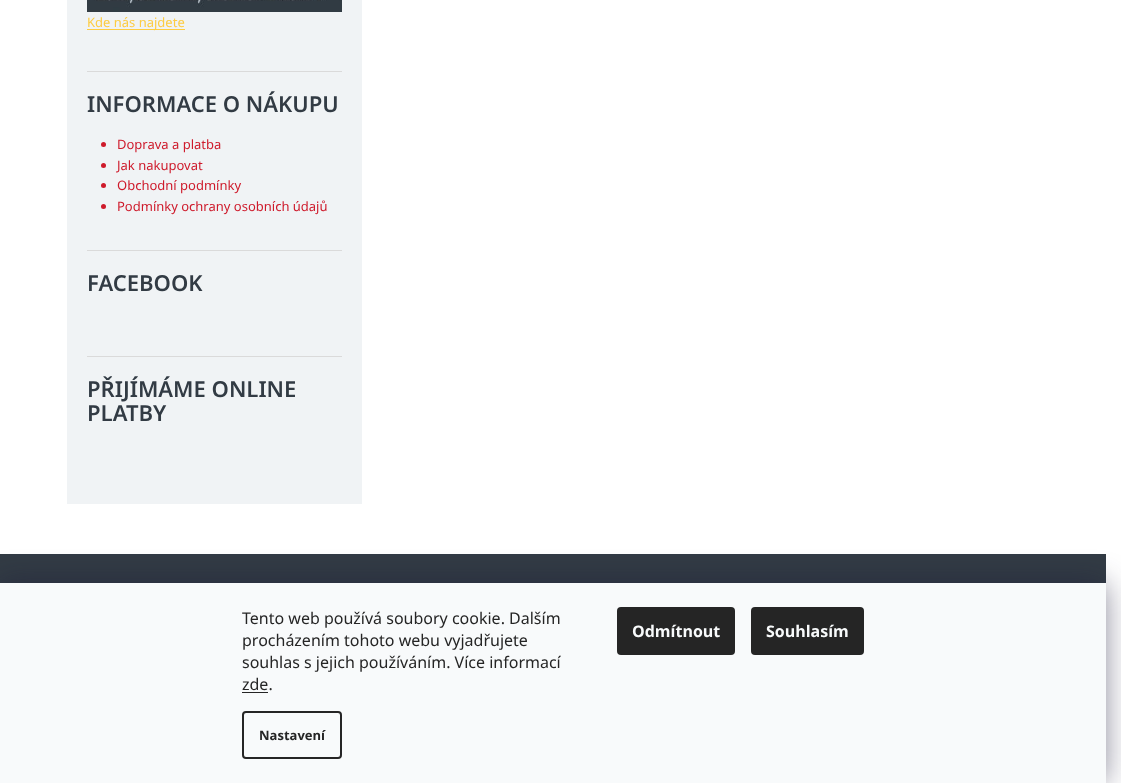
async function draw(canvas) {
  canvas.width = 1121
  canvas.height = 783
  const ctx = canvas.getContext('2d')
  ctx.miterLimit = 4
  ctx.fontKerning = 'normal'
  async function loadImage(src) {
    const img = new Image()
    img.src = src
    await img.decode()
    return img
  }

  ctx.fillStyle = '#fff'
  ctx.fillRect(0, 0, 1121, 783)
  ctx.fillStyle = '#f0f3f5'
  ctx.fillRect(67, 0, 295, 504)
  ctx.fillStyle = '#dadada'
  ctx.fillRect(87, 71, 255, 1)
  ctx.drawImage(await loadImage('image0.png'), 87, 0, 255, 12)
  ctx.fillStyle = '#fdcc42'
  ctx.fillRect(87, 29, 98, 1)
  ctx.font = '13px Noto Sans'
  ctx.fillText('Kde nás najdete', 87, 27)
  ctx.fillStyle = '#dadada'
  ctx.fillRect(87, 250, 255, 1)
  ctx.font = '600 22px Noto Sans'
  ctx.fillStyle = '#323b44'
  ctx.fillText('INFORMACE O NÁKUPU', 87, 112)
  ctx.fillStyle = '#ce1a2b'
  ctx.beginPath()
  ctx.arc(103.5, 144.5, 2.5, 0, 2 * Math.PI)
  ctx.fill()
  ctx.font = '13px Noto Sans'
  ctx.fillText('Doprava a platba', 117, 149)
  ctx.beginPath()
  ctx.arc(103.5, 165.5, 2.5, 0, 2 * Math.PI)
  ctx.fill()
  ctx.fillText('Jak nakupovat', 117, 170)
  ctx.beginPath()
  ctx.arc(103.5, 185.5, 2.5, 0, 2 * Math.PI)
  ctx.fill()
  ctx.fillText('Obchodní podmínky', 117, 190)
  ctx.beginPath()
  ctx.arc(103.5, 206.5, 2.5, 0, 2 * Math.PI)
  ctx.fill()
  ctx.fillText('Podmínky ochrany osobních údajů', 117, 211)
  ctx.fillStyle = '#dadada'
  ctx.fillRect(87, 356, 255, 1)
  ctx.font = '600 22px Noto Sans'
  ctx.fillStyle = '#323b44'
  ctx.fillText('FACEBOOK', 87, 291)
  ctx.fillText('PŘIJÍMÁME ONLINE', 87, 397)
  ctx.fillText('PLATBY', 87, 421)
  ctx.fillRect(0, 554, 1106, 29)
  ctx.fillStyle = '#1b193980'
  ctx.filter = 'blur(15px)'
  ctx.beginPath()
  ctx.rect(0, 583, 1106, 200)
  ctx.fill()
  ctx.filter = 'none'
  ctx.fillStyle = '#f8fafb'
  ctx.fillRect(0, 583, 1106, 200)
  ctx.font = '16px Noto Sans'
  ctx.fillStyle = '#252525'
  ctx.fillText('Tento web používá soubory cookie. Dalším', 242, 624)
  ctx.fillText('procházením tohoto webu vyjadřujete', 242, 646)
  ctx.fillText('souhlas s jejich používáním. Více informací', 242, 668)
  ctx.fillText('zde.', 242, 690)
  ctx.fillRect(242, 692, 26, 1)
  ctx.beginPath()
  ctx.roundRect(243, 712, 98, 46, 3)
  ctx.strokeStyle = '#252525'
  ctx.lineWidth = 2
  ctx.stroke()
  ctx.font = 'bold 13px Noto Sans'
  ctx.fillText('Nastavení', 259, 740)
  ctx.beginPath()
  ctx.roundRect(617, 607, 118, 48, 4)
  ctx.fill()
  ctx.font = 'bold 16px Noto Sans'
  ctx.fillStyle = '#f8fafb'
  ctx.fillText('Odmítnout', 632, 637)
  ctx.fillStyle = '#252525'
  ctx.beginPath()
  ctx.roundRect(751, 607, 113, 48, 4)
  ctx.fill()
  ctx.fillStyle = '#f8fafb'
  ctx.fillText('Souhlasím', 766, 637)
}

draw(document.querySelector('canvas'))
